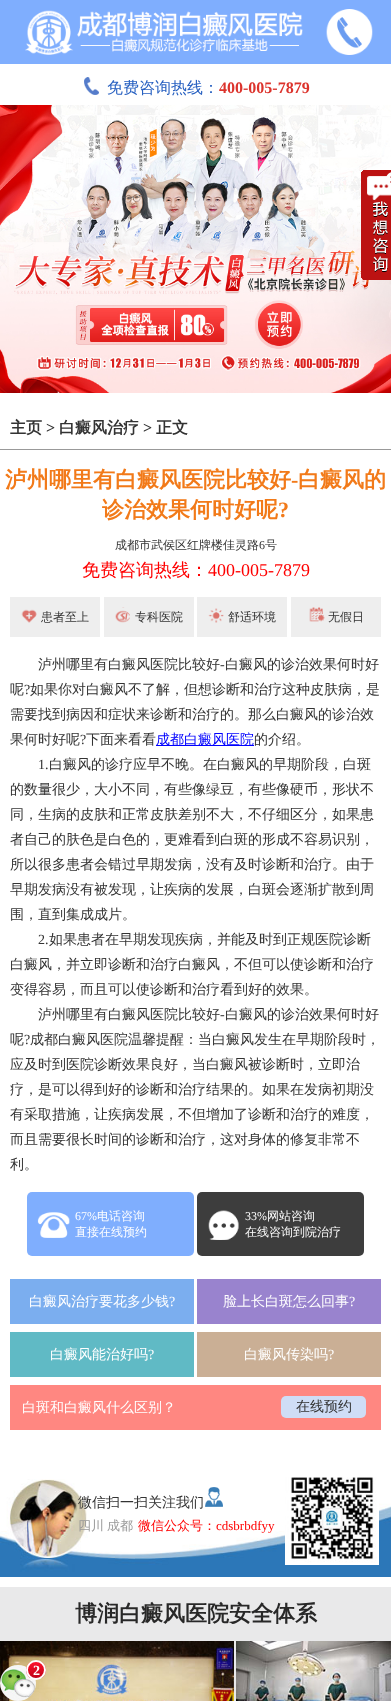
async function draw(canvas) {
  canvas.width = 391
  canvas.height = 1701
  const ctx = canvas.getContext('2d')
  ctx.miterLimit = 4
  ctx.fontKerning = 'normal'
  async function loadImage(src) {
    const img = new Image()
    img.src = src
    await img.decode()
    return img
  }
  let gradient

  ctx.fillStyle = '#fff'
  ctx.fillRect(0, 0, 391, 1701)
  ctx.drawImage(await loadImage('image0.png'), 0, 0, 391, 64)
  ctx.drawImage(await loadImage('image1.png'), 84, 77, 15, 18)
  ctx.font = '500 16px WenQuanYi Zen Hei'
  ctx.fillStyle = '#2760c1'
  ctx.fillText('免费咨询热线：', 107, 93)
  ctx.font = 'bold 16px Liberation Serif'
  ctx.fillStyle = '#dc332c'
  ctx.fillText('400-005-7879', 219, 93)
  ctx.drawImage(await loadImage('image2.png'), 0, 105, 391, 288)
  ctx.drawImage(await loadImage('image3.png'), 361, 170, 30, 110)
  ctx.fillStyle = '#999'
  ctx.fillRect(0, 449, 391, 1)
  ctx.font = 'bold 16px WenQuanYi Zen Hei'
  ctx.fillStyle = '#333'
  ctx.fillText('主页', 10, 433)
  ctx.font = 'bold 16px Liberation Serif'
  ctx.fillText('>', 46, 433)
  ctx.font = 'bold 16px WenQuanYi Zen Hei'
  ctx.fillText('白癜风治疗', 59, 433)
  ctx.font = 'bold 16px Liberation Serif'
  ctx.fillText('>', 143, 433)
  ctx.font = 'bold 16px WenQuanYi Zen Hei'
  ctx.fillText('正文', 156, 433)
  ctx.font = 'bold 22px WenQuanYi Zen Hei'
  ctx.fillStyle = '#f27a19'
  ctx.fillText('泸州哪里有白癜风医院比较好', 5, 487)
  ctx.font = 'bold 22px Liberation Serif'
  ctx.fillText('-', 291, 487)
  ctx.font = 'bold 22px WenQuanYi Zen Hei'
  ctx.fillText('白癜风的', 298, 487)
  ctx.fillText('诊治效果何时好呢', 102, 517)
  ctx.font = 'bold 22px Liberation Serif'
  ctx.fillText('?', 278, 517)
  ctx.font = '500 12px WenQuanYi Zen Hei'
  ctx.fillStyle = '#333'
  ctx.fillText('成都市武侯区红牌楼佳灵路', 115, 549)
  ctx.font = '12px Liberation Serif'
  ctx.fillText('6', 259, 549)
  ctx.font = '500 12px WenQuanYi Zen Hei'
  ctx.fillText('号', 265, 549)
  ctx.font = '500 18px WenQuanYi Zen Hei'
  ctx.fillStyle = '#f00'
  ctx.fillText('免费咨询热线：', 82, 576)
  ctx.font = '18px Liberation Serif'
  ctx.fillText('400-005-7879', 208, 576)
  ctx.fillStyle = '#eee'
  ctx.fillRect(10, 597, 90, 40)
  ctx.drawImage(await loadImage('image4.png'), 21, 609, 16, 14)
  ctx.font = '500 12px WenQuanYi Zen Hei'
  ctx.fillStyle = '#333'
  ctx.fillText('患者至上', 41, 621)
  ctx.fillStyle = '#eee'
  ctx.fillRect(104, 597, 90, 40)
  ctx.drawImage(await loadImage('image5.png'), 115, 607, 15, 16)
  ctx.fillStyle = '#333'
  ctx.fillText('专科医院', 135, 621)
  ctx.fillStyle = '#eee'
  ctx.fillRect(197, 597, 90, 40)
  ctx.drawImage(await loadImage('image6.png'), 208, 608, 16, 15)
  ctx.fillStyle = '#333'
  ctx.fillText('舒适环境', 228, 621)
  ctx.fillStyle = '#eee'
  ctx.fillRect(291, 597, 90, 40)
  ctx.drawImage(await loadImage('image7.png'), 309, 607, 16, 15)
  ctx.fillStyle = '#333'
  ctx.fillText('无假日', 328, 621)
  ctx.font = '500 14px WenQuanYi Zen Hei'
  ctx.fillText('泸州哪里有白癜风医院比较好', 38, 669)
  ctx.font = '14px Liberation Serif'
  ctx.fillText('-', 220, 669)
  ctx.font = '500 14px WenQuanYi Zen Hei'
  ctx.fillText('白癜风的诊治效果何时好', 225, 669)
  ctx.fillText('呢', 10, 694)
  ctx.font = '14px Liberation Serif'
  ctx.fillText('?', 24, 694)
  ctx.font = '500 14px WenQuanYi Zen Hei'
  ctx.fillText('如果你对白癜风不了解，但想诊断和治疗这种皮肤病，是', 30, 694)
  ctx.fillText('需要找到病因和症状来诊断和治疗的。那么白癜风的诊治效', 10, 719)
  ctx.fillText('果何时好呢', 10, 744)
  ctx.font = '14px Liberation Serif'
  ctx.fillText('?', 80, 744)
  ctx.font = '500 14px WenQuanYi Zen Hei'
  ctx.fillText('下面来看看', 86, 744)
  ctx.fillStyle = '#00f'
  ctx.fillRect(156, 745, 98, 1)
  ctx.fillText('成都白癜风医院', 156, 744)
  ctx.fillStyle = '#333'
  ctx.fillText('的介绍。', 254, 744)
  ctx.font = '14px Liberation Serif'
  ctx.fillText('1.', 38, 769)
  ctx.font = '500 14px WenQuanYi Zen Hei'
  ctx.fillText('白癜风的诊疗应早不晚。在白癜风的早期阶段，白斑', 49, 769)
  ctx.fillText('的数量很少，大小不同，有些像绿豆，有些像硬币，形状不', 10, 794)
  ctx.fillText('同，生病的皮肤和正常皮肤差别不大，不仔细区分，如果患', 10, 819)
  ctx.fillText('者自己的肤色是白色的，更难看到白斑的形成不容易识别，', 10, 844)
  ctx.fillText('所以很多患者会错过早期发病，没有及时诊断和治疗。由于', 10, 869)
  ctx.fillText('早期发病没有被发现，让疾病的发展，白斑会逐渐扩散到周', 10, 894)
  ctx.fillText('围，直到集成成片。', 10, 919)
  ctx.font = '14px Liberation Serif'
  ctx.fillText('2.', 38, 944)
  ctx.font = '500 14px WenQuanYi Zen Hei'
  ctx.fillText('如果患者在早期发现疾病，并能及时到正规医院诊断', 49, 944)
  ctx.fillText('白癜风，并立即诊断和治疗白癜风，不但可以使诊断和治疗', 10, 969)
  ctx.fillText('变得容易，而且可以使诊断和治疗看到好的效果。', 10, 994)
  ctx.fillText('泸州哪里有白癜风医院比较好', 38, 1019)
  ctx.font = '14px Liberation Serif'
  ctx.fillText('-', 220, 1019)
  ctx.font = '500 14px WenQuanYi Zen Hei'
  ctx.fillText('白癜风的诊治效果何时好', 225, 1019)
  ctx.fillText('呢', 10, 1044)
  ctx.font = '14px Liberation Serif'
  ctx.fillText('?', 24, 1044)
  ctx.font = '500 14px WenQuanYi Zen Hei'
  ctx.fillText('成都白癜风医院温馨提醒：当白癜风发生在早期阶段时，', 30, 1044)
  ctx.fillText('应及时到医院诊断效果良好，当白癜风被诊断时，立即治', 10, 1069)
  ctx.fillText('疗，是可以得到好的诊断和治疗结果的。如果在发病初期没', 10, 1094)
  ctx.fillText('有采取措施，让疾病发展，不但增加了诊断和治疗的难度，', 10, 1119)
  ctx.fillText('而且需要很长时间的诊断和治疗，这对身体的修复非常不', 10, 1144)
  ctx.fillText('利。', 10, 1169)
  ctx.fillStyle = '#7faefe'
  ctx.beginPath()
  ctx.roundRect(27, 1192, 167, 64, 5)
  ctx.fill()
  ctx.drawImage(await loadImage('image8.png'), 37, 1212, 33, 26)
  ctx.font = '12px Liberation Serif'
  ctx.fillStyle = '#fff'
  ctx.fillText('67%', 75, 1220)
  ctx.font = '500 12px WenQuanYi Zen Hei'
  ctx.fillText('电话咨询', 97, 1220)
  ctx.fillText('直接在线预约', 75, 1236)
  ctx.fillStyle = '#3d3d3d'
  ctx.beginPath()
  ctx.roundRect(197, 1192, 167, 64, 5)
  ctx.fill()
  ctx.drawImage(await loadImage('image9.png'), 208, 1210, 31, 30)
  ctx.font = '12px Liberation Serif'
  ctx.fillStyle = '#fff'
  ctx.fillText('33%', 245, 1220)
  ctx.font = '500 12px WenQuanYi Zen Hei'
  ctx.fillText('网站咨询', 267, 1220)
  ctx.fillText('在线咨询到院治疗', 245, 1236)
  ctx.fillStyle = '#7baeef'
  ctx.fillRect(10, 1279, 184, 45)
  ctx.font = '500 14px WenQuanYi Zen Hei'
  ctx.fillStyle = '#fff'
  ctx.fillText('白癜风治疗要花多少钱', 29, 1306)
  ctx.font = '14px Liberation Serif'
  ctx.fillText('?', 169, 1306)
  ctx.fillStyle = '#9983ce'
  ctx.fillRect(197, 1279, 184, 45)
  ctx.font = '500 14px WenQuanYi Zen Hei'
  ctx.fillStyle = '#fff'
  ctx.fillText('脸上长白斑怎么回事', 223, 1306)
  ctx.font = '14px Liberation Serif'
  ctx.fillText('?', 349, 1306)
  ctx.fillStyle = '#60bac5'
  ctx.fillRect(10, 1332, 184, 45)
  ctx.font = '500 14px WenQuanYi Zen Hei'
  ctx.fillStyle = '#fff'
  ctx.fillText('白癜风能治好吗', 50, 1359)
  ctx.font = '14px Liberation Serif'
  ctx.fillText('?', 148, 1359)
  ctx.fillStyle = '#caaf95'
  ctx.fillRect(197, 1332, 184, 45)
  ctx.font = '500 14px WenQuanYi Zen Hei'
  ctx.fillStyle = '#fff'
  ctx.fillText('白癜风传染吗', 244, 1359)
  ctx.font = '14px Liberation Serif'
  ctx.fillText('?', 328, 1359)
  ctx.fillStyle = '#ff8781'
  ctx.fillRect(10, 1385, 371, 45)
  ctx.font = '500 14px WenQuanYi Zen Hei'
  ctx.fillStyle = '#fff'
  ctx.fillText('白斑和白癜风什么区别？', 22, 1412)
  ctx.fillStyle = '#cfddf6'
  ctx.beginPath()
  ctx.roundRect(281, 1396, 85, 22, 5)
  ctx.fill()
  ctx.fillStyle = '#333'
  ctx.fillText('在线预约', 296, 1411)
  ctx.drawImage(await loadImage('image10.png'), 0, 1479, 391, 98)
  ctx.fillText('微信扫一扫关注我们', 78, 1507)
  ctx.drawImage(await loadImage('image11.png'), 205, 1487, 18, 20)
  ctx.wordSpacing = '-1px'
  ctx.font = '500 13px WenQuanYi Zen Hei'
  ctx.fillStyle = '#999'
  ctx.fillText('四川 成都', 78, 1530)
  ctx.wordSpacing = '0px'
  ctx.fillStyle = '#f00'
  ctx.fillText('微信公众号：', 138, 1530)
  ctx.font = '13px Liberation Serif'
  ctx.fillText('cdsbrbdfyy', 216, 1530)
  ctx.drawImage(await loadImage('image12.png'), 285, 1477, 94, 88)
  ctx.fillStyle = '#e9e9ea'
  ctx.fillRect(0, 1587, 391, 114)
  ctx.font = 'bold 22px WenQuanYi Zen Hei'
  ctx.fillStyle = '#282828'
  ctx.fillText('博润白癜风医院安全体系', 75, 1621)
  ctx.drawImage(await loadImage('image13.png'), 0, 1641, 234, 60)
  ctx.drawImage(await loadImage('image14.png'), 236, 1641, 155, 60)
  ctx.drawImage(await loadImage('image15.png'), 0, 1665, 36, 36)
  ctx.save()
  ctx.beginPath()
  ctx.roundRect(26, 1660, 20, 20, 10)
  ctx.clip()
  gradient = ctx.createLinearGradient(36, 1662, 36, 1678)
  gradient.addColorStop(0, '#fd142e')
  gradient.addColorStop(1, '#bf0116')
  ctx.fillStyle = gradient
  ctx.fillRect(26, 1662, 20, 16)
  ctx.restore()
  ctx.beginPath()
  ctx.arc(36, 1670, 9, 0, 2 * Math.PI)
  ctx.strokeStyle = '#fff'
  ctx.lineWidth = 2
  ctx.stroke()
  ctx.font = 'bold 14px Liberation Serif'
  ctx.fillStyle = '#fff'
  ctx.fillText('2', 33, 1675)
}

draw(document.querySelector('canvas'))
